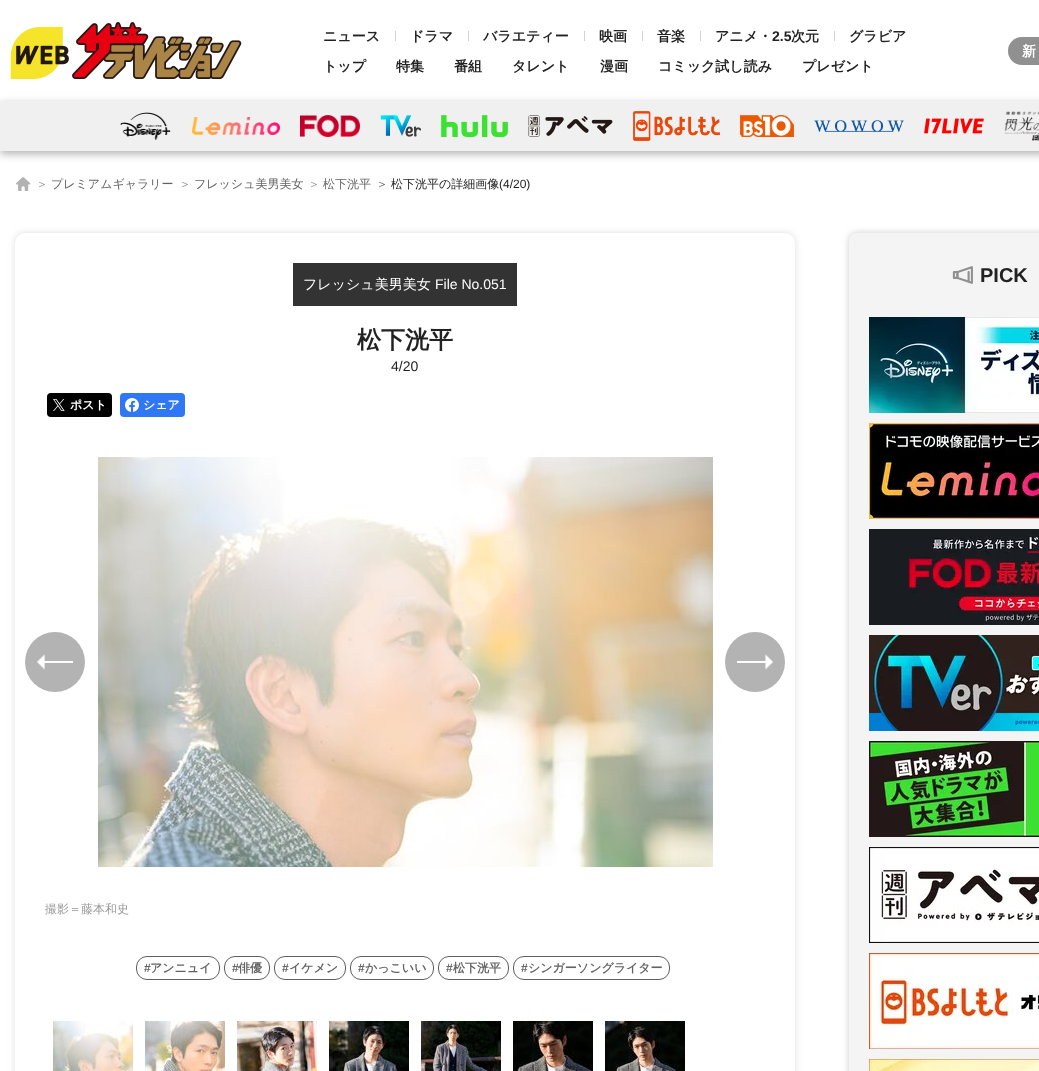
async function draw(canvas) {
  canvas.width = 1039
  canvas.height = 1071
  const ctx = canvas.getContext('2d')
  ctx.miterLimit = 4
  ctx.fontKerning = 'normal'
  async function loadImage(src) {
    const img = new Image()
    img.src = src
    await img.decode()
    return img
  }

  ctx.fillStyle = '#fff'
  ctx.fillRect(0, 0, 1039, 1071)
  ctx.drawImage(await loadImage('image0.png'), 10, 22, 232, 57)
  ctx.font = 'bold 14px WenQuanYi Zen Hei'
  ctx.fillStyle = '#222'
  ctx.fillText('ニュース', 323, 41)
  ctx.fillStyle = '#d3d3d3'
  ctx.fillRect(395, 31, 1, 10)
  ctx.fillStyle = '#222'
  ctx.fillText('ドラマ', 410, 41)
  ctx.fillStyle = '#d3d3d3'
  ctx.fillRect(468, 31, 1, 10)
  ctx.fillStyle = '#222'
  ctx.fillText('バラエティー', 483, 41)
  ctx.fillStyle = '#d3d3d3'
  ctx.fillRect(584, 31, 1, 10)
  ctx.fillStyle = '#222'
  ctx.fillText('映画', 599, 41)
  ctx.fillStyle = '#d3d3d3'
  ctx.fillRect(642, 31, 1, 10)
  ctx.fillStyle = '#222'
  ctx.fillText('音楽', 657, 41)
  ctx.fillStyle = '#d3d3d3'
  ctx.fillRect(700, 31, 1, 10)
  ctx.fillStyle = '#222'
  ctx.fillText('アニメ・', 715, 41)
  ctx.font = 'bold 14px Liberation Sans'
  ctx.fillText('2.5', 772, 41)
  ctx.font = 'bold 14px WenQuanYi Zen Hei'
  ctx.fillText('次元', 791, 41)
  ctx.fillStyle = '#d3d3d3'
  ctx.fillRect(834, 31, 1, 10)
  ctx.fillStyle = '#222'
  ctx.fillText('グラビア', 849, 41)
  ctx.fillText('トップ', 323, 71)
  ctx.fillText('特集', 396, 71)
  ctx.fillText('番組', 454, 71)
  ctx.fillText('タレント', 512, 71)
  ctx.fillText('漫画', 600, 71)
  ctx.fillText('コミック試し読み', 658, 71)
  ctx.fillText('プレゼント', 802, 71)
  ctx.fillStyle = '#909090'
  ctx.beginPath()
  ctx.roundRect(1008, 37, 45, 28, 14)
  ctx.fill()
  ctx.fillStyle = '#fff'
  ctx.fillText('新', 1022, 56)
  ctx.fillStyle = '#0000004d'
  ctx.filter = 'blur(4px)'
  ctx.beginPath()
  ctx.rect(0, 104, 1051, 50)
  ctx.fill()
  ctx.filter = 'none'
  ctx.fillStyle = '#f0f0f0'
  ctx.fillRect(0, 101, 1039, 50)
  ctx.drawImage(await loadImage('image1.png'), 120, 112, 51, 28)
  ctx.drawImage(await loadImage('image2.png'), 192, 117, 88, 18)
  ctx.drawImage(await loadImage('image3.png'), 300, 115, 60, 22)
  ctx.drawImage(await loadImage('image4.png'), 380, 115, 41, 22)
  ctx.drawImage(await loadImage('image5.png'), 441, 115, 67, 22)
  ctx.drawImage(await loadImage('image6.png'), 528, 115, 85, 22)
  ctx.drawImage(await loadImage('image7.png'), 633, 111, 87, 30)
  ctx.drawImage(await loadImage('image8.png'), 740, 115, 54, 22)
  ctx.drawImage(await loadImage('image9.png'), 814, 120, 90, 12)
  ctx.drawImage(await loadImage('image10.png'), 924, 118, 60, 16)
  ctx.drawImage(await loadImage('image11.png'), 1004, 111, 35, 30)
  ctx.drawImage(await loadImage('image12.png'), 16, 177, 15, 14)
  ctx.font = '500 12px WenQuanYi Zen Hei'
  ctx.fillStyle = '#909090'
  ctx.fillText('＞', 36, 188)
  ctx.fillStyle = '#646464'
  ctx.fillText('プレミアムギャラリー', 51, 188)
  ctx.fillStyle = '#909090'
  ctx.fillText('＞', 179, 188)
  ctx.fillStyle = '#646464'
  ctx.fillText('フレッシュ美男美女', 194, 188)
  ctx.fillStyle = '#909090'
  ctx.fillText('＞', 308, 188)
  ctx.fillStyle = '#646464'
  ctx.fillText('松下洸平', 323, 188)
  ctx.fillText('＞', 376, 188)
  ctx.fillStyle = '#222'
  ctx.fillText('松下洸平の詳細画像', 391, 188)
  ctx.font = '12px Liberation Sans'
  ctx.fillText('(4/20)', 499, 188)
  ctx.fillStyle = '#5555554d'
  ctx.filter = 'blur(3.5px)'
  ctx.beginPath()
  ctx.roundRect(849, 233, 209, 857, 8)
  ctx.fill()
  ctx.filter = 'none'
  ctx.fillStyle = '#f4f4f4'
  ctx.beginPath()
  ctx.roundRect(849, 233, 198, 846, 8)
  ctx.fill()
  ctx.drawImage(await loadImage('image13.png'), 952, 266, 21, 18)
  ctx.font = 'bold 20px Liberation Sans'
  ctx.fillStyle = '#222'
  ctx.fillText('PICK', 980, 282)
  ctx.drawImage(await loadImage('image14.png'), 869, 317, 170, 96)
  ctx.drawImage(await loadImage('image15.png'), 869, 423, 170, 96)
  ctx.drawImage(await loadImage('image16.png'), 869, 529, 170, 96)
  ctx.drawImage(await loadImage('image17.png'), 869, 635, 170, 96)
  ctx.drawImage(await loadImage('image18.png'), 869, 741, 170, 96)
  ctx.drawImage(await loadImage('image19.png'), 869, 847, 170, 96)
  ctx.drawImage(await loadImage('image20.png'), 869, 953, 170, 96)
  ctx.drawImage(await loadImage('image21.png'), 869, 1059, 170, 12)
  ctx.fillStyle = '#55555533'
  ctx.filter = 'blur(3.5px)'
  ctx.beginPath()
  ctx.roundRect(15, 233, 780, 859, 10)
  ctx.fill()
  ctx.filter = 'none'
  ctx.fillStyle = '#fff'
  ctx.beginPath()
  ctx.roundRect(15, 233, 780, 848, 10)
  ctx.fill()
  ctx.fillStyle = '#333'
  ctx.fillRect(293, 263, 224, 43)
  ctx.font = '500 14px WenQuanYi Zen Hei'
  ctx.fillStyle = '#fff'
  ctx.fillText('フレッシュ美男美女', 303, 289)
  ctx.font = '14px Liberation Sans'
  ctx.fillText('File No.051', 435, 289)
  ctx.font = 'bold 24px WenQuanYi Zen Hei'
  ctx.fillStyle = '#222'
  ctx.fillText('松下洸平', 357, 348)
  ctx.font = '14px Liberation Sans'
  ctx.fillText('4/20', 391, 371)
  ctx.fillStyle = '#000'
  ctx.beginPath()
  ctx.roundRect(47, 393, 65, 24, 4)
  ctx.fill()
  ctx.drawImage(await loadImage('image22.png'), 53, 399, 12, 12)
  ctx.font = 'bold 12px WenQuanYi Zen Hei'
  ctx.fillStyle = '#fff'
  ctx.fillText('ポスト', 70, 409)
  ctx.fillStyle = '#3077f3'
  ctx.beginPath()
  ctx.roundRect(120, 393, 65, 24, 4)
  ctx.fill()
  ctx.drawImage(await loadImage('image23.png'), 125, 398, 14, 14)
  ctx.fillStyle = '#fff'
  ctx.fillText('シェア', 143, 409)
  ctx.drawImage(await loadImage('image24.png'), 98, 457, 615, 410)
  ctx.fillStyle = '#b3b3b3'
  ctx.beginPath()
  ctx.arc(55, 662, 30, 0, 2 * Math.PI)
  ctx.fill()
  ctx.drawImage(await loadImage('image25.png'), 37, 654, 36, 16)
  ctx.beginPath()
  ctx.arc(755, 662, 30, 0, 2 * Math.PI)
  ctx.fill()
  ctx.drawImage(await loadImage('image26.png'), 737, 654, 36, 16)
  ctx.font = '500 12px WenQuanYi Zen Hei'
  ctx.fillStyle = '#999'
  ctx.fillText('撮影＝藤本和史', 45, 913)
  ctx.beginPath()
  ctx.roundRect(136.5, 956.5, 83, 23, 10.5)
  ctx.strokeStyle = '#606060'
  ctx.stroke()
  ctx.font = 'bold 12px Liberation Sans'
  ctx.fillStyle = '#646464'
  ctx.fillText('#', 144, 972)
  ctx.font = 'bold 12px WenQuanYi Zen Hei'
  ctx.fillText('アンニュイ', 150, 972)
  ctx.beginPath()
  ctx.roundRect(224.5, 956.5, 45, 23, 10.5)
  ctx.stroke()
  ctx.font = 'bold 12px Liberation Sans'
  ctx.fillText('#', 232, 972)
  ctx.font = 'bold 12px WenQuanYi Zen Hei'
  ctx.fillText('俳優', 238, 972)
  ctx.beginPath()
  ctx.roundRect(274.5, 956.5, 71, 23, 10.5)
  ctx.stroke()
  ctx.font = 'bold 12px Liberation Sans'
  ctx.fillText('#', 282, 972)
  ctx.font = 'bold 12px WenQuanYi Zen Hei'
  ctx.fillText('イケメン', 289, 972)
  ctx.beginPath()
  ctx.roundRect(350.5, 956.5, 83, 23, 10.5)
  ctx.stroke()
  ctx.font = 'bold 12px Liberation Sans'
  ctx.fillText('#', 358, 972)
  ctx.font = 'bold 12px WenQuanYi Zen Hei'
  ctx.fillText('かっこいい', 365, 972)
  ctx.beginPath()
  ctx.roundRect(438.5, 956.5, 70, 23, 10.5)
  ctx.stroke()
  ctx.font = 'bold 12px Liberation Sans'
  ctx.fillText('#', 446, 972)
  ctx.font = 'bold 12px WenQuanYi Zen Hei'
  ctx.fillText('松下洸平', 453, 972)
  ctx.beginPath()
  ctx.roundRect(513.5, 956.5, 156, 23, 10.5)
  ctx.stroke()
  ctx.font = 'bold 12px Liberation Sans'
  ctx.fillText('#', 521, 972)
  ctx.font = 'bold 12px WenQuanYi Zen Hei'
  ctx.fillText('シンガーソングライター', 528, 972)
  ctx.drawImage(await loadImage('image27.png'), 53, 1021, 80, 50)
  ctx.drawImage(await loadImage('image28.png'), 145, 1021, 80, 50)
  ctx.drawImage(await loadImage('image29.png'), 237, 1021, 80, 50)
  ctx.drawImage(await loadImage('image30.png'), 329, 1021, 80, 50)
  ctx.drawImage(await loadImage('image31.png'), 421, 1021, 80, 50)
  ctx.drawImage(await loadImage('image32.png'), 513, 1021, 80, 50)
  ctx.drawImage(await loadImage('image33.png'), 605, 1021, 80, 50)
}

draw(document.querySelector('canvas'))
